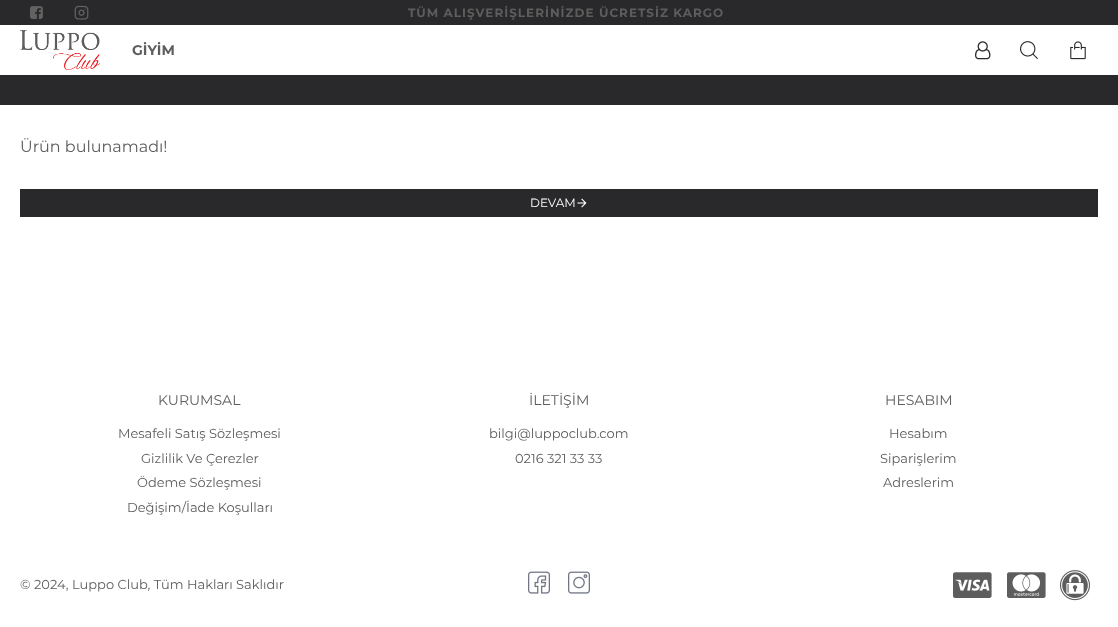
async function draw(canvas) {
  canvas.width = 1118
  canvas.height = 627
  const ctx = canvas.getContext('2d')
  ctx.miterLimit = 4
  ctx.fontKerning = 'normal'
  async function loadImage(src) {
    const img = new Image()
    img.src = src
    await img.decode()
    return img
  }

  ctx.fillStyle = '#fff'
  ctx.fillRect(0, 0, 1118, 627)
  ctx.fillStyle = '#29292b'
  ctx.fillRect(0, 0, 1118, 25)
  ctx.drawImage(await loadImage('image0.png'), 30, 6, 13, 13)
  ctx.drawImage(await loadImage('image1.png'), 74, 5, 15, 15)
  ctx.letterSpacing = '1px'
  ctx.font = 'bold 12px Montserrat'
  ctx.fillStyle = '#5d5d5d'
  ctx.fillText('TÜM ALIŞVERİŞLERİNİZDE ÜCRETSİZ KARGO', 408, 17)
  ctx.drawImage(await loadImage('image2.png'), 20, 30, 80, 40)
  ctx.letterSpacing = '0px'
  ctx.font = 'bold 14px Montserrat'
  ctx.fillText('GİYİM', 132, 55)
  ctx.drawImage(await loadImage('image3.png'), 975, 41, 16, 19)
  ctx.drawImage(await loadImage('image4.png'), 1020, 41, 18, 18)
  ctx.drawImage(await loadImage('image5.png'), 1070, 41, 16, 19)
  ctx.fillStyle = '#29292b'
  ctx.fillRect(0, 75, 1118, 30)
  ctx.font = '16px Montserrat'
  ctx.fillStyle = '#5d5d5d'
  ctx.fillText('Ürün bulunamadı!', 20, 152)
  ctx.fillStyle = '#29292b'
  ctx.fillRect(20, 189, 1078, 28)
  ctx.font = '12px Montserrat'
  ctx.fillStyle = '#fff'
  ctx.fillText('DEVAM', 530, 207)
  ctx.drawImage(await loadImage('image6.png'), 577, 198, 10, 10)
  ctx.font = '14px Montserrat'
  ctx.fillStyle = '#5d5d5d'
  ctx.fillText('KURUMSAL', 158, 405)
  ctx.font = '13px Montserrat'
  ctx.fillText('Mesafeli Satış Sözleşmesi', 118, 438)
  ctx.fillText('Gizlilik Ve Çerezler', 141, 463)
  ctx.fillText('Ödeme Sözleşmesi', 137, 487)
  ctx.fillText('Değişim/İade Koşulları', 127, 512)
  ctx.font = '14px Montserrat'
  ctx.fillText('İLETİŞİM', 529, 405)
  ctx.font = '13px Montserrat'
  ctx.fillText('bilgi@luppoclub.com', 489, 438)
  ctx.fillText('0216 321 33 33', 515, 463)
  ctx.font = '14px Montserrat'
  ctx.fillText('HESABIM', 885, 405)
  ctx.font = '13px Montserrat'
  ctx.fillText('Hesabım', 889, 438)
  ctx.fillText('Siparişlerim', 880, 463)
  ctx.fillText('Adreslerim', 883, 487)
  ctx.fillText('© 2024, Luppo Club, Tüm Hakları Saklıdır', 20, 589)
  ctx.drawImage(await loadImage('image7.png'), 528, 571, 22, 23)
  ctx.drawImage(await loadImage('image8.png'), 568, 571, 22, 23)
  ctx.drawImage(await loadImage('image9.png'), 953, 572, 39, 26)
  ctx.drawImage(await loadImage('image10.png'), 1007, 572, 39, 26)
  ctx.drawImage(await loadImage('image11.png'), 1060, 570, 30, 31)
}

draw(document.querySelector('canvas'))
